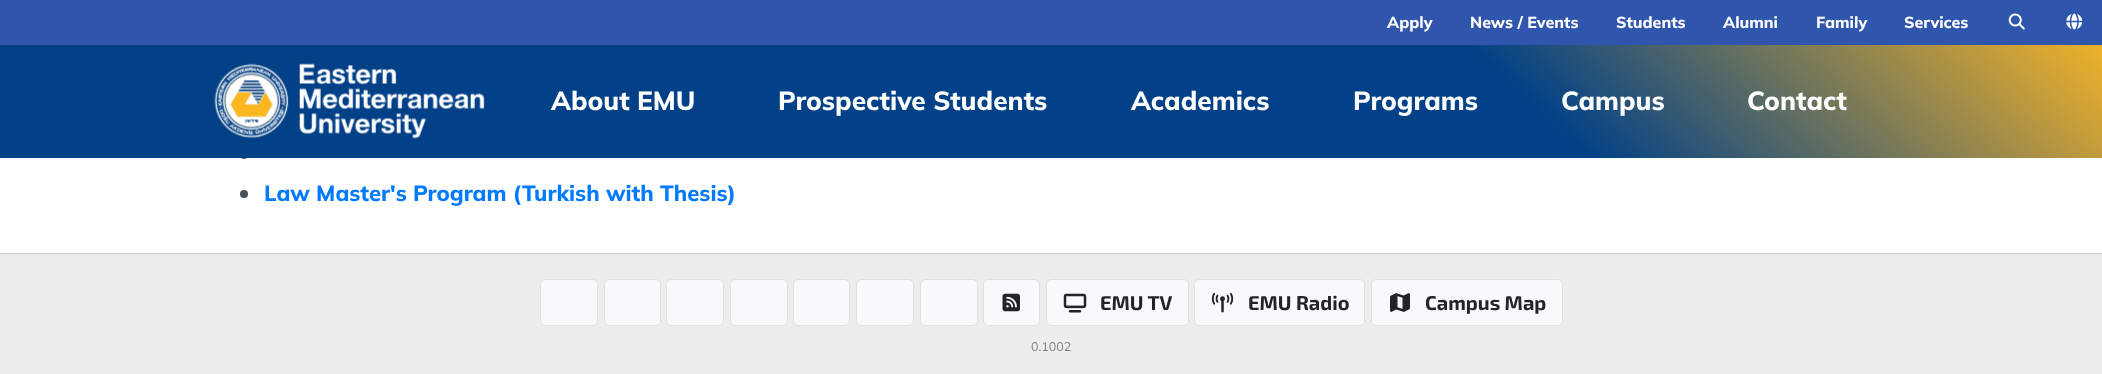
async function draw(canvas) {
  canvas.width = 2102
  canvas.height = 374
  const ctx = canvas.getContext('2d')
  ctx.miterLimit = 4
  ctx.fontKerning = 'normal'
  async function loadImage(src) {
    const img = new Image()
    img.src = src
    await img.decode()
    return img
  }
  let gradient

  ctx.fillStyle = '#fff'
  ctx.fillRect(0, 0, 2102, 374)
  ctx.fillStyle = '#495057'
  ctx.beginPath()
  ctx.arc(244, 155, 4, 0, 2 * Math.PI)
  ctx.fill()
  gradient = ctx.createLinearGradient(523, 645, 1579, -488)
  gradient.addColorStop(0.7, '#024187')
  gradient.addColorStop(0.99, '#f9b626')
  ctx.fillStyle = gradient
  ctx.fillRect(0, 45, 2102, 113)
  ctx.fillStyle = '#2f55ac'
  ctx.fillRect(0, 0, 2102, 45)
  ctx.font = '800 16px Mulish'
  ctx.fillStyle = '#fff'
  ctx.fillText('Apply', 1387, 28)
  ctx.fillText('News / Events', 1470, 28)
  ctx.fillText('Students', 1616, 28)
  ctx.fillText('Alumni', 1723, 28)
  ctx.fillText('Family', 1816, 28)
  ctx.fillText('Services', 1904, 28)
  ctx.drawImage(await loadImage('image0.png'), 2008, 13, 17, 17)
  ctx.drawImage(await loadImage('image1.png'), 2066, 13, 17, 17)
  ctx.drawImage(await loadImage('image2.png'), 214, 63, 271, 76)
  ctx.font = '800 26.25px Mulish'
  ctx.fillText('About EMU', 551, 110)
  ctx.fillText('Prospective Students', 778, 110)
  ctx.fillText('Academics', 1131, 110)
  ctx.fillText('Programs', 1353, 110)
  ctx.fillText('Campus', 1561, 110)
  ctx.fillText('Contact', 1747, 110)
  ctx.fillStyle = '#495057'
  ctx.beginPath()
  ctx.arc(244, 194, 4, 0, 2 * Math.PI)
  ctx.fill()
  ctx.font = '800 22px Mulish'
  ctx.fillStyle = '#007bff'
  ctx.fillText('Law Master\'s Program (Turkish with Thesis)', 264, 201)
  ctx.fillStyle = '#ededed'
  ctx.fillRect(0, 254, 2102, 120)
  ctx.fillStyle = '#ccc'
  ctx.fillRect(0, 253, 2102, 1)
  ctx.fillStyle = '#f8f9fa'
  ctx.beginPath()
  ctx.roundRect(540.5, 279.5, 57, 46, 4.5)
  ctx.fill()
  ctx.strokeStyle = '#e0e0e0'
  ctx.stroke()
  ctx.beginPath()
  ctx.roundRect(604.5, 279.5, 56, 46, 4.5)
  ctx.fill()
  ctx.stroke()
  ctx.beginPath()
  ctx.roundRect(666.5, 279.5, 57, 46, 4.5)
  ctx.fill()
  ctx.stroke()
  ctx.beginPath()
  ctx.roundRect(730.5, 279.5, 57, 46, 4.5)
  ctx.fill()
  ctx.stroke()
  ctx.beginPath()
  ctx.roundRect(793.5, 279.5, 56, 46, 4.5)
  ctx.fill()
  ctx.stroke()
  ctx.beginPath()
  ctx.roundRect(856.5, 279.5, 57, 46, 4.5)
  ctx.fill()
  ctx.stroke()
  ctx.beginPath()
  ctx.roundRect(920.5, 279.5, 57, 46, 4.5)
  ctx.fill()
  ctx.stroke()
  ctx.beginPath()
  ctx.roundRect(983.5, 279.5, 56, 46, 4.5)
  ctx.fill()
  ctx.stroke()
  ctx.drawImage(await loadImage('image3.png'), 1002, 293, 18, 19)
  ctx.beginPath()
  ctx.roundRect(1046.5, 279.5, 142, 46, 4.5)
  ctx.fill()
  ctx.stroke()
  ctx.drawImage(await loadImage('image4.png'), 1063, 293, 24, 20)
  ctx.font = 'bold 20px "Exo 2"'
  ctx.fillStyle = '#212529'
  ctx.fillText('EMU TV', 1100, 310)
  ctx.fillStyle = '#f8f9fa'
  ctx.beginPath()
  ctx.roundRect(1194.5, 279.5, 170, 46, 4.5)
  ctx.fill()
  ctx.stroke()
  ctx.drawImage(await loadImage('image5.png'), 1211, 292, 23, 21)
  ctx.fillStyle = '#212529'
  ctx.fillText('EMU Radio', 1248, 310)
  ctx.fillStyle = '#f8f9fa'
  ctx.beginPath()
  ctx.roundRect(1371.5, 279.5, 191, 46, 4.5)
  ctx.fill()
  ctx.stroke()
  ctx.drawImage(await loadImage('image6.png'), 1390, 293, 20, 19)
  ctx.fillStyle = '#212529'
  ctx.fillText('Campus Map', 1425, 310)
  ctx.font = '12.5px Mulish'
  ctx.fillStyle = '#808080'
  ctx.fillText('0.1002', 1031, 351)
}

draw(document.querySelector('canvas'))
